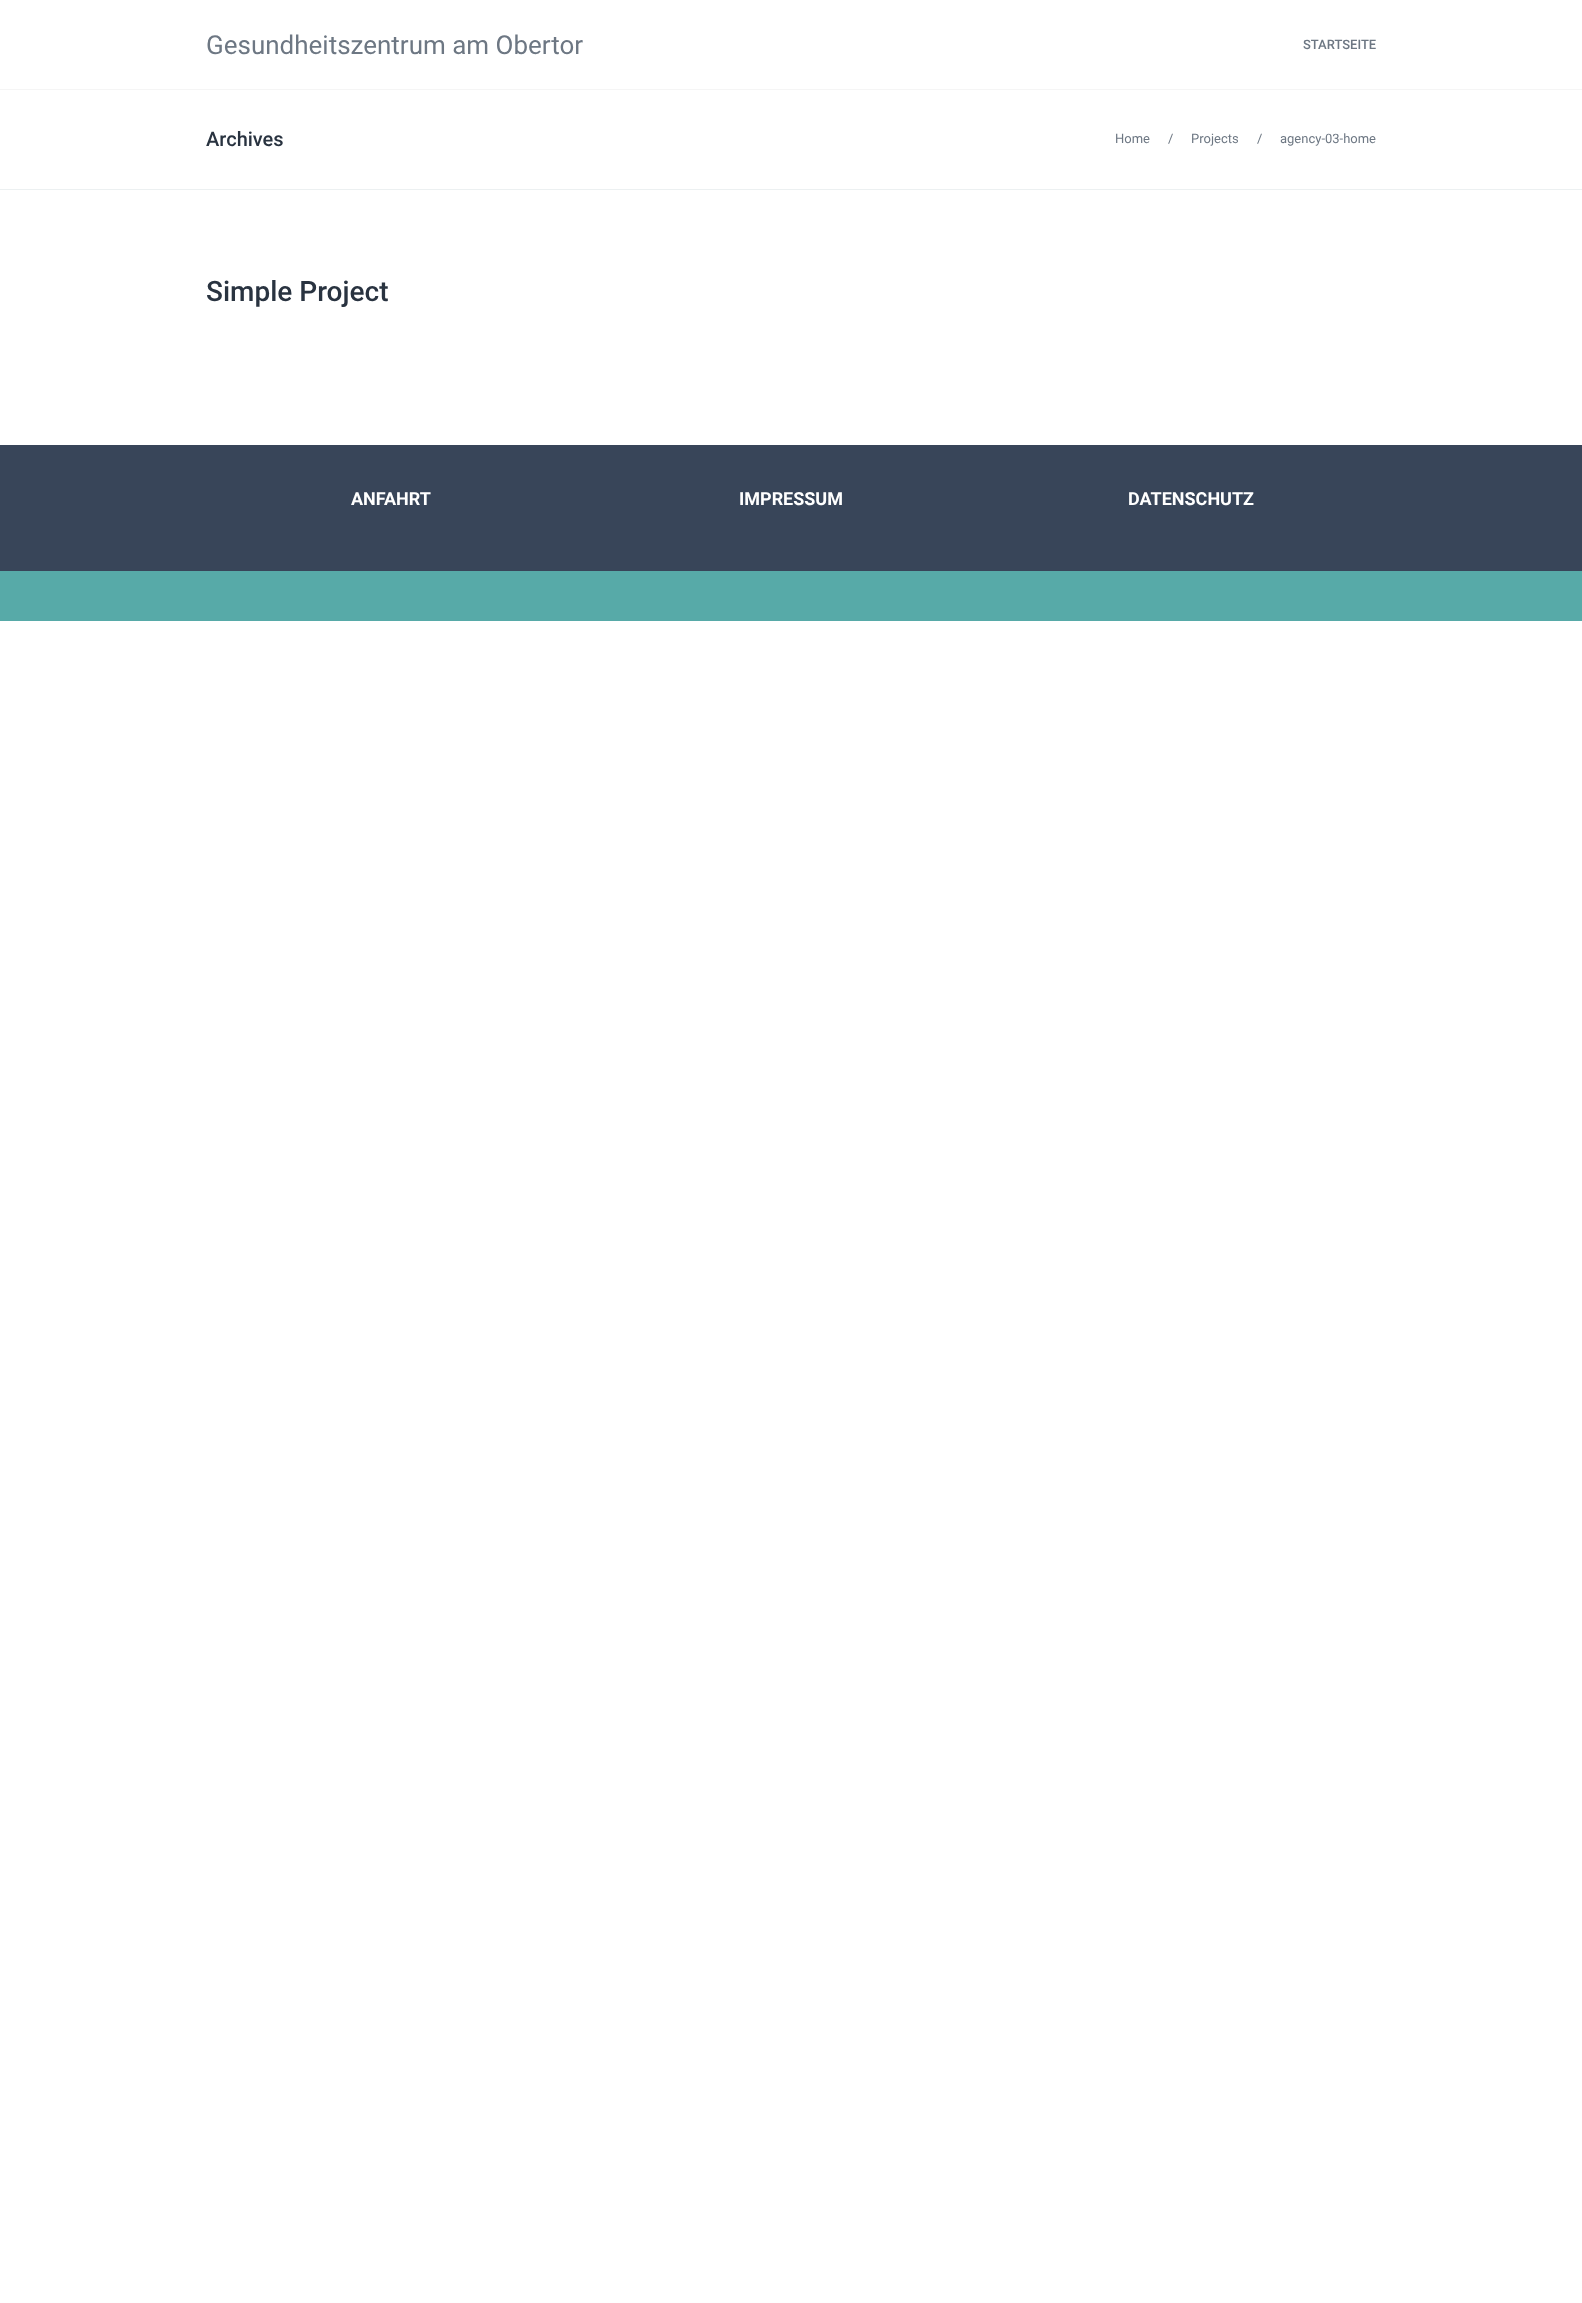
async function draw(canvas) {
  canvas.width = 1582
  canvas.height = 2303
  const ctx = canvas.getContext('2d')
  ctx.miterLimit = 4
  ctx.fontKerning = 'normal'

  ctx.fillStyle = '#fff'
  ctx.fillRect(0, 0, 1582, 2303)
  ctx.fillStyle = '#f5f5f5'
  ctx.fillRect(0, 89, 1582, 1)
  ctx.font = '26px Roboto'
  ctx.fillStyle = '#6d7783'
  ctx.fillText('Gesundheitszentrum am Obertor', 206, 54)
  ctx.font = '500 13px Roboto'
  ctx.fillText('STARTSEITE', 1303, 49)
  ctx.fillStyle = '#ecf0f1'
  ctx.fillRect(0, 189, 1582, 1)
  ctx.font = '500 20px Roboto'
  ctx.fillStyle = '#293340'
  ctx.fillText('Archives', 206, 146)
  ctx.font = '13px Roboto'
  ctx.fillStyle = '#6d7783'
  ctx.fillText('Home', 1115, 143)
  ctx.fillText('/', 1168, 143)
  ctx.fillText('Projects', 1191, 143)
  ctx.fillText('/', 1257, 143)
  ctx.fillText('agency-03-home', 1280, 143)
  ctx.font = '500 28px Roboto'
  ctx.fillStyle = '#293340'
  ctx.fillText('Simple Project', 206, 301)
  ctx.fillStyle = '#384559'
  ctx.fillRect(0, 445, 1582, 126)
  ctx.font = 'bold 18px Roboto'
  ctx.fillStyle = '#fff'
  ctx.fillText('ANFAHRT', 351, 505)
  ctx.fillText('IMPRESSUM', 739, 505)
  ctx.fillText('DATENSCHUTZ', 1128, 505)
  ctx.fillStyle = '#57aaa8'
  ctx.fillRect(0, 571, 1582, 50)
}

draw(document.querySelector('canvas'))
